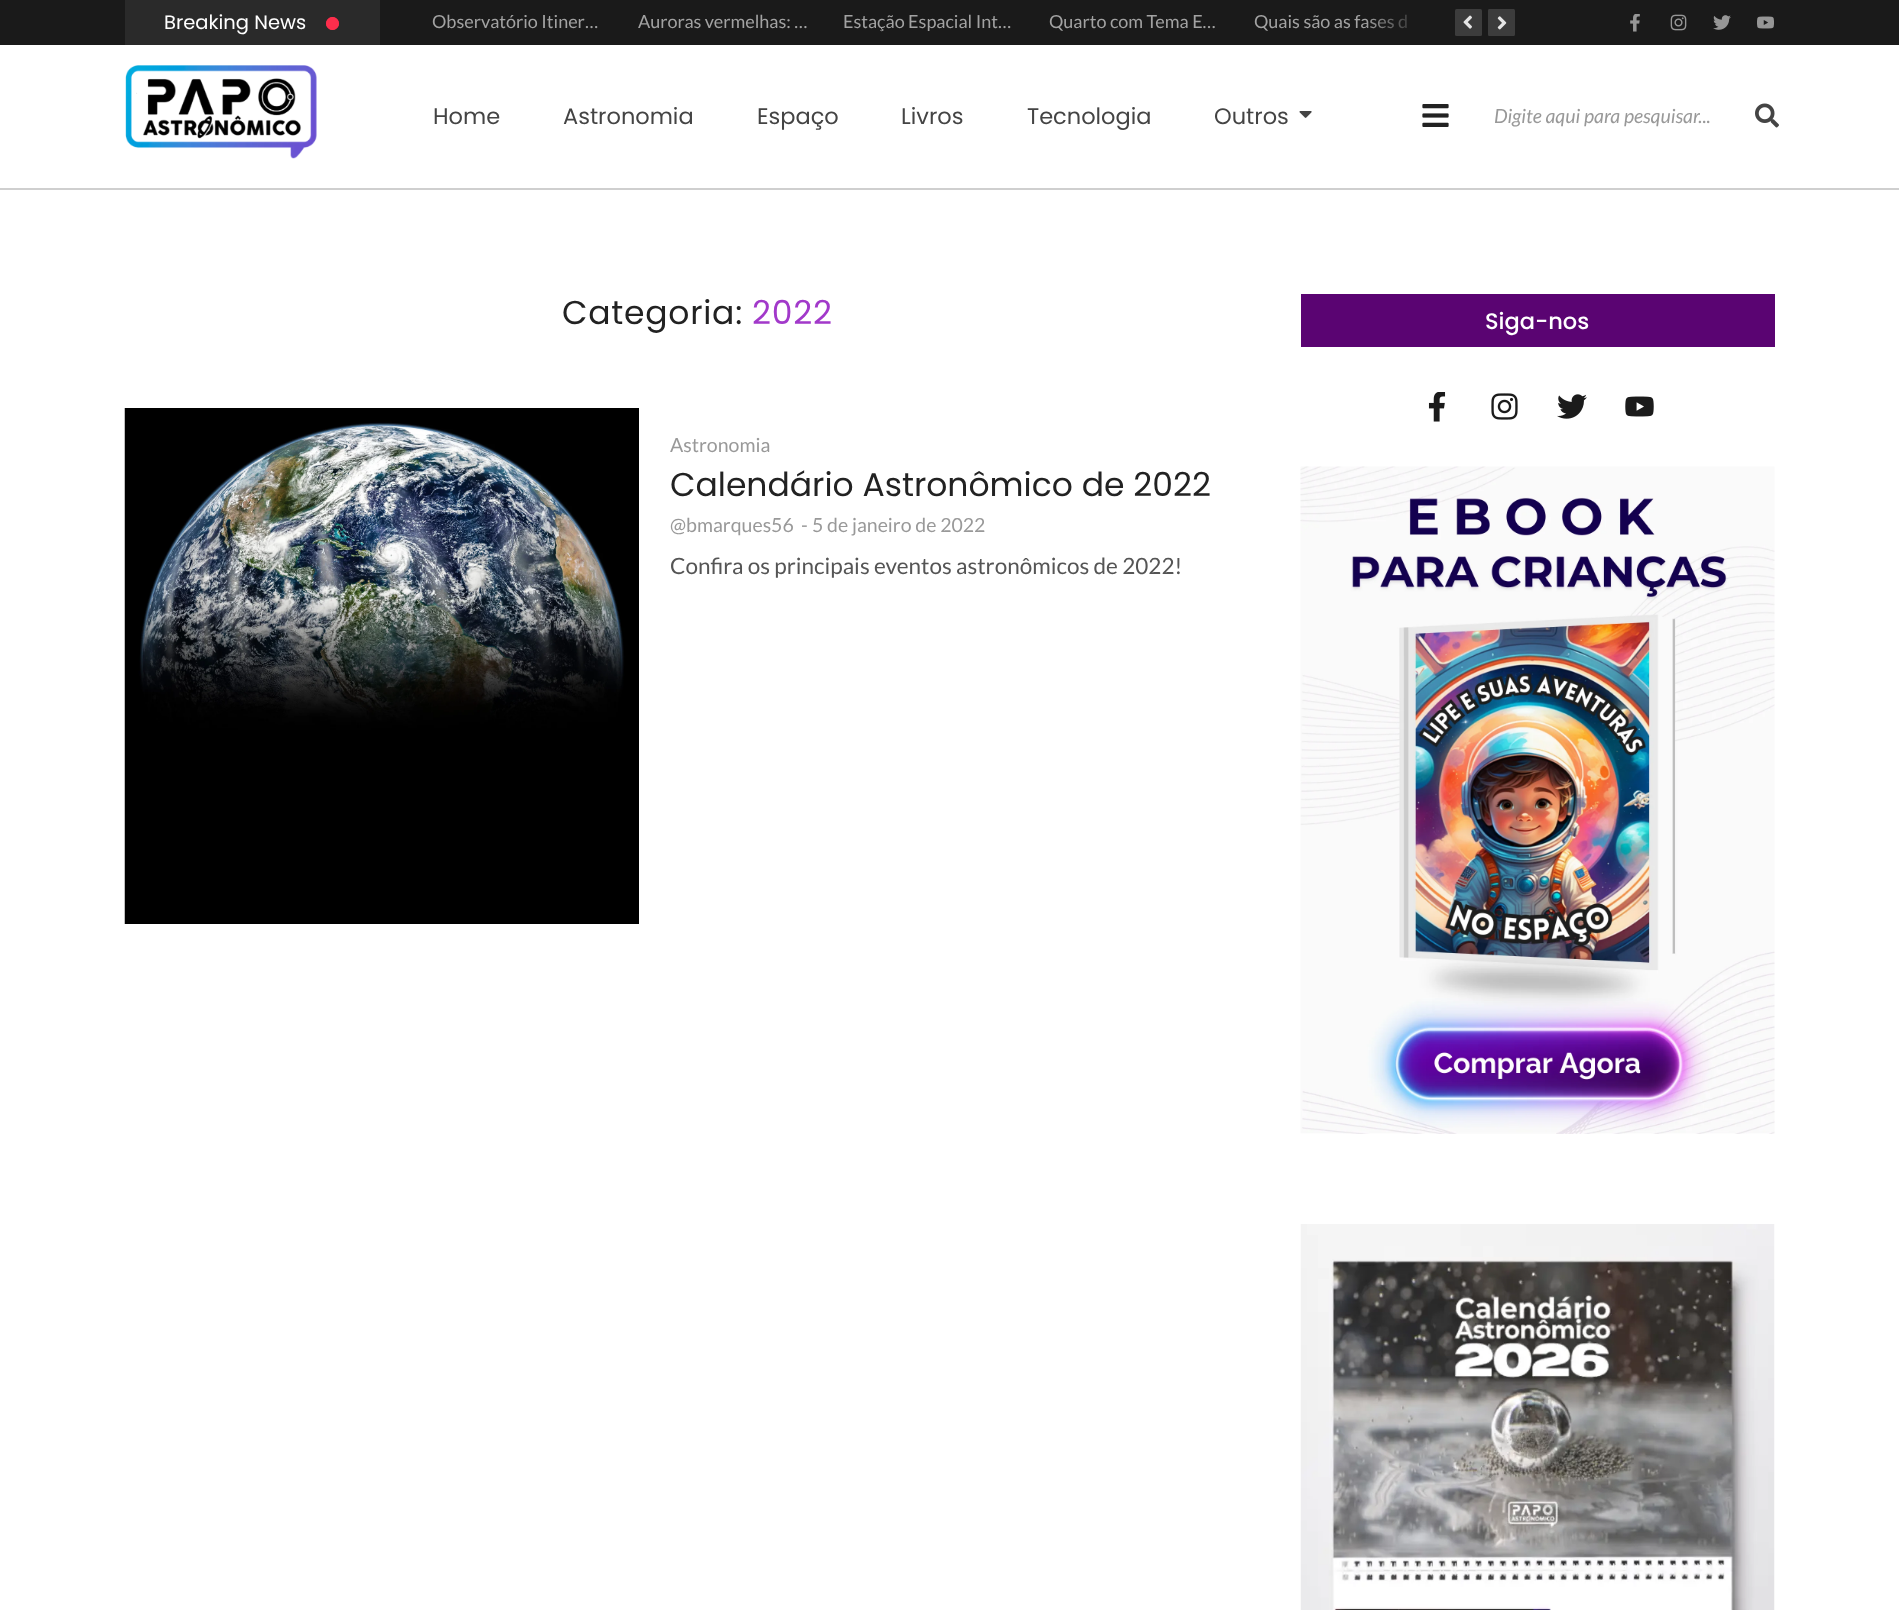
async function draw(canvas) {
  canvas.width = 1899
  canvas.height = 1610
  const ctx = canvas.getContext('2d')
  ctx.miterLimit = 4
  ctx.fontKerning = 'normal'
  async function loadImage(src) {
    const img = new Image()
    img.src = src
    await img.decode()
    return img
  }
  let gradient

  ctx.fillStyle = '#fff'
  ctx.fillRect(0, 0, 1899, 1610)
  ctx.fillStyle = '#1a1a1a'
  ctx.fillRect(0, 0, 1899, 45)
  ctx.fillStyle = '#2a2a2a'
  ctx.fillRect(125, 0, 255, 45)
  ctx.font = '19.5px Poppins'
  ctx.fillStyle = '#fff'
  ctx.fillText('Breaking News', 164, 29)
  ctx.fillStyle = '#fd2e4c'
  ctx.beginPath()
  ctx.arc(332.5, 23.5, 5.5, 0, 2 * Math.PI)
  ctx.fill()
  ctx.strokeStyle = '#fd2e4c'
  ctx.lineWidth = 2
  ctx.stroke()
  ctx.beginPath()
  ctx.arc(332.5, 23.5, 5.5, 0, 2 * Math.PI)
  ctx.stroke()
  ctx.font = '18px Lato'
  ctx.fillStyle = '#a2a2a2'
  ctx.fillText('Observatório Itiner…', 432, 28)
  ctx.fillText('Auroras vermelhas: …', 638, 28)
  ctx.fillText('Estação Espacial Int…', 843, 28)
  ctx.fillText('Quarto com Tema E…', 1049, 28)
  ctx.fillText('Quais são as fases d', 1254, 28)
  gradient = ctx.createLinearGradient(1365, 23, 1425, 22)
  gradient.addColorStop(0, '#1a1a1a00')
  gradient.addColorStop(1, '#1a1a1a')
  ctx.fillStyle = gradient
  ctx.fillRect(1366, 14, 41, 15)
  ctx.fillStyle = '#3c3c3c'
  ctx.beginPath()
  ctx.roundRect(1455, 9, 27, 27, 1.5)
  ctx.fill()
  ctx.drawImage(await loadImage('image0.png'), 1463, 15, 9, 14)
  ctx.beginPath()
  ctx.moveTo(1513.5, 36)
  ctx.lineTo(1489.5, 36)
  ctx.bezierCurveTo(1488.5, 36, 1488, 35.5, 1488, 34.5)
  ctx.lineTo(1488, 10.5)
  ctx.bezierCurveTo(1488, 9.5, 1488.5, 9, 1489.5, 9)
  ctx.lineTo(1513.5, 9)
  ctx.bezierCurveTo(1514, 9, 1515, 9.5, 1515, 10.5)
  ctx.lineTo(1515, 34.5)
  ctx.bezierCurveTo(1515, 35.5, 1514, 36, 1513.5, 36)
  ctx.closePath()
  ctx.fill()
  ctx.drawImage(await loadImage('image1.png'), 1497, 16, 10, 14)
  ctx.drawImage(await loadImage('image2.png'), 1630, 14, 10, 18)
  ctx.drawImage(await loadImage('image3.png'), 1670, 14, 17, 17)
  ctx.drawImage(await loadImage('image4.png'), 1713, 15, 18, 15)
  ctx.drawImage(await loadImage('image5.png'), 1757, 16, 17, 13)
  ctx.fillStyle = '#cfcfcf'
  ctx.fillRect(0, 188, 1899, 2)
  ctx.drawImage(await loadImage('image6.png'), 125, 65, 192, 94)
  ctx.font = '22.5px Poppins'
  ctx.fillStyle = '#444'
  ctx.fillText('Home', 433, 124)
  ctx.fillText('Astronomia', 563, 124)
  ctx.fillText('Espaço', 757, 124)
  ctx.fillText('Livros', 901, 124)
  ctx.fillText('Tecnologia', 1027, 124)
  ctx.fillText('Outros', 1214, 124)
  ctx.drawImage(await loadImage('image7.png'), 1299, 111, 13, 7)
  ctx.drawImage(await loadImage('image8.png'), 1422, 104, 27, 23)
  ctx.font = 'italic 19.5px Lato'
  ctx.fillStyle = '#999'
  ctx.fillText('Digite aqui para pesquisar...', 1494, 123)
  ctx.drawImage(await loadImage('image9.png'), 1755, 103, 24, 25)
  ctx.letterSpacing = '0.75px'
  ctx.font = '33px Poppins'
  ctx.fillStyle = '#222'
  ctx.fillText('Categoria:', 562, 324)
  ctx.fillStyle = '#a239ca'
  ctx.fillText('2022', 752, 324)
  ctx.drawImage(await loadImage('image10.png'), 124, 408, 515, 516)
  ctx.letterSpacing = '0px'
  ctx.font = '19.5px Lato'
  ctx.fillStyle = '#999'
  ctx.fillText('Astronomia', 670, 452)
  ctx.font = '33px Poppins'
  ctx.fillStyle = '#222'
  ctx.fillText('Calendário Astronômico de 2022', 670, 496)
  ctx.font = '19.5px Lato'
  ctx.fillStyle = '#999'
  ctx.fillText('@bmarques56', 670, 532)
  ctx.fillText('-', 801, 532)
  ctx.fillText('5 de janeiro de 2022', 812, 532)
  ctx.font = '22.5px Lato'
  ctx.fillStyle = '#555'
  ctx.fillText('Confira os principais eventos astronômicos de 2022!', 670, 574)
  ctx.fillStyle = '#5a0472'
  ctx.fillRect(1301, 294, 474, 53)
  ctx.font = '500 22.5px Poppins'
  ctx.fillStyle = '#fff'
  ctx.fillText('Siga-nos', 1485, 329)
  ctx.drawImage(await loadImage('image11.png'), 1428, 392, 18, 30)
  ctx.drawImage(await loadImage('image12.png'), 1491, 393, 27, 27)
  ctx.drawImage(await loadImage('image13.png'), 1557, 394, 30, 25)
  ctx.drawImage(await loadImage('image14.png'), 1625, 396, 29, 21)
  ctx.drawImage(await loadImage('image15.png'), 1300, 466, 475, 668)
  ctx.drawImage(await loadImage('image16.png'), 1300, 1224, 475, 386)
}

draw(document.querySelector('canvas'))
